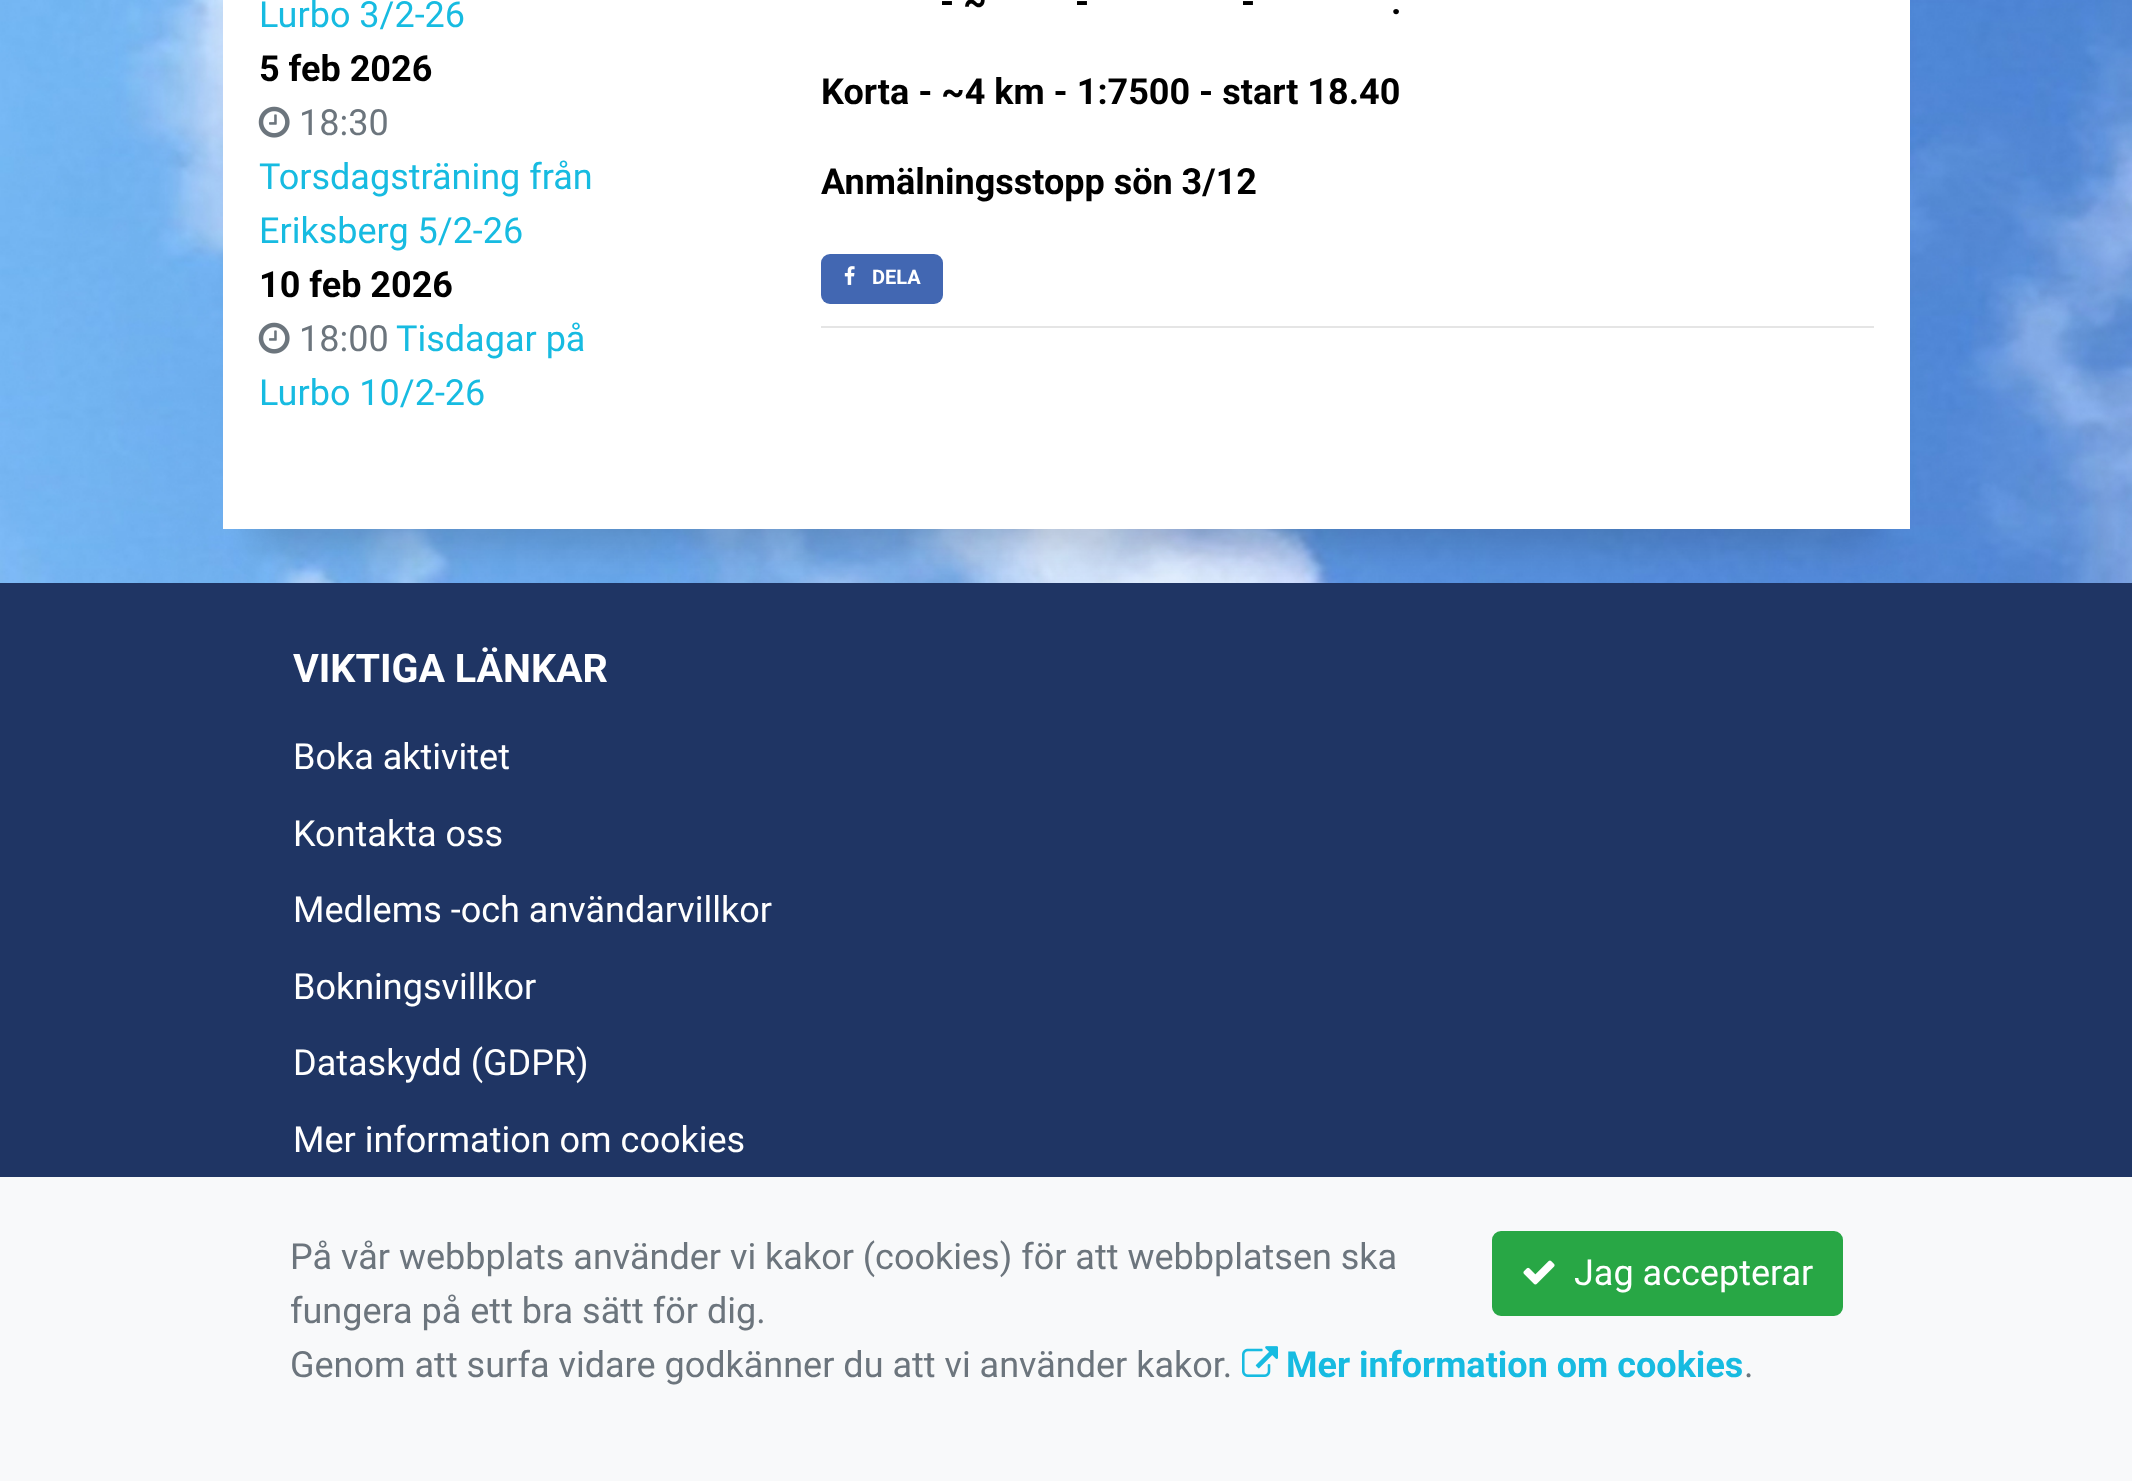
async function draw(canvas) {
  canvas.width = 2132
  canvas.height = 1481
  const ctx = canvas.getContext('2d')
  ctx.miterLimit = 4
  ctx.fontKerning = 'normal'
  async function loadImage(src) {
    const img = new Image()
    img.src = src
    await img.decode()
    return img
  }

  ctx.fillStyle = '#fff'
  ctx.fillRect(0, 0, 2132, 1481)
  ctx.drawImage(await loadImage('image0.png'), 0, 0, 2132, 583)
  ctx.fillStyle = '#00000026'
  ctx.filter = 'blur(18px)'
  ctx.beginPath()
  ctx.roundRect(257, -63, 1620, 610, 9)
  ctx.fill()
  ctx.filter = 'none'
  ctx.fillStyle = '#fff'
  ctx.fillRect(223, 0, 1687, 529)
  ctx.font = '36px Roboto'
  ctx.fillStyle = '#17bbe1'
  ctx.fillText('Lurbo 3/2-26', 259, 27)
  ctx.font = 'bold 36px Roboto'
  ctx.fillStyle = '#000'
  ctx.fillText('5 feb 2026', 259, 81)
  ctx.drawImage(await loadImage('image1.png'), 258, 106, 32, 32)
  ctx.font = '36px Roboto'
  ctx.fillStyle = '#6c757d'
  ctx.fillText('18:30', 299, 135)
  ctx.fillStyle = '#17bbe1'
  ctx.fillText('Torsdagsträning från', 259, 189)
  ctx.fillText('Eriksberg 5/2-26', 259, 243)
  ctx.font = 'bold 36px Roboto'
  ctx.fillStyle = '#000'
  ctx.fillText('10 feb 2026', 259, 297)
  ctx.drawImage(await loadImage('image1.png'), 258, 322, 32, 32)
  ctx.font = '36px Roboto'
  ctx.fillStyle = '#6c757d'
  ctx.fillText('18:00', 299, 351)
  ctx.fillStyle = '#17bbe1'
  ctx.fillText('Tisdagar på', 396, 351)
  ctx.fillText('Lurbo 10/2-26', 259, 405)
  ctx.fillStyle = '#e5e5e5'
  ctx.fillRect(821, 326, 1053, 2)
  ctx.font = 'bold 36px Roboto'
  ctx.fillStyle = '#000'
  ctx.fillText('- ~', 940, 14)
  ctx.fillText('-', 1075, 14)
  ctx.fillText('-', 1241, 14)
  ctx.fillText('.', 1391, 14)
  ctx.fillText('Korta - ~4 km - 1:7500 - start 18.40', 821, 104)
  ctx.fillText('Anmälningsstopp sön 3/12', 821, 194)
  ctx.fillStyle = '#4267b2'
  ctx.beginPath()
  ctx.roundRect(821, 254, 122, 50, 9)
  ctx.fill()
  ctx.drawImage(await loadImage('image2.png'), 844, 266, 11, 19)
  ctx.font = 'bold 20px Roboto'
  ctx.fillStyle = '#fff'
  ctx.fillText('DELA', 872, 284)
  ctx.fillStyle = '#1f3564'
  ctx.fillRect(0, 583, 2132, 594)
  ctx.font = 'bold 39.5px Roboto'
  ctx.fillStyle = '#fff'
  ctx.fillText('VIKTIGA LÄNKAR', 293, 682)
  ctx.font = '36px Roboto'
  ctx.fillText('Boka aktivitet', 293, 769)
  ctx.fillText('Kontakta oss', 293, 846)
  ctx.fillText('Medlems -och användarvillkor', 293, 922)
  ctx.fillText('Bokningsvillkor', 293, 999)
  ctx.fillText('Dataskydd (GDPR)', 293, 1075)
  ctx.fillText('Mer information om cookies', 293, 1152)
  ctx.fillStyle = '#f8f9fa'
  ctx.fillRect(0, 1177, 2132, 304)
  ctx.fillStyle = '#6c757d'
  ctx.fillText('På vår webbplats använder vi kakor (cookies) för att webbplatsen ska', 290, 1269)
  ctx.fillText('fungera på ett bra sätt för dig.', 290, 1323)
  ctx.fillText('Genom att surfa vidare godkänner du att vi använder kakor.', 290, 1377)
  ctx.drawImage(await loadImage('image3.png'), 1242, 1346, 36, 31)
  ctx.font = 'bold 36px Roboto'
  ctx.fillStyle = '#17bbe1'
  ctx.fillText('Mer information om cookies', 1286, 1377)
  ctx.font = '36px Roboto'
  ctx.fillStyle = '#6c757d'
  ctx.fillText('.', 1744, 1377)
  ctx.fillStyle = '#28a745'
  ctx.beginPath()
  ctx.roundRect(1493, 1232, 349, 83, 8)
  ctx.fill()
  ctx.strokeStyle = '#28a745'
  ctx.lineWidth = 2
  ctx.stroke()
  ctx.drawImage(await loadImage('image4.png'), 1523, 1260, 32, 25)
  ctx.fillStyle = '#fff'
  ctx.fillText('Jag accepterar', 1574, 1285)
}

draw(document.querySelector('canvas'))
